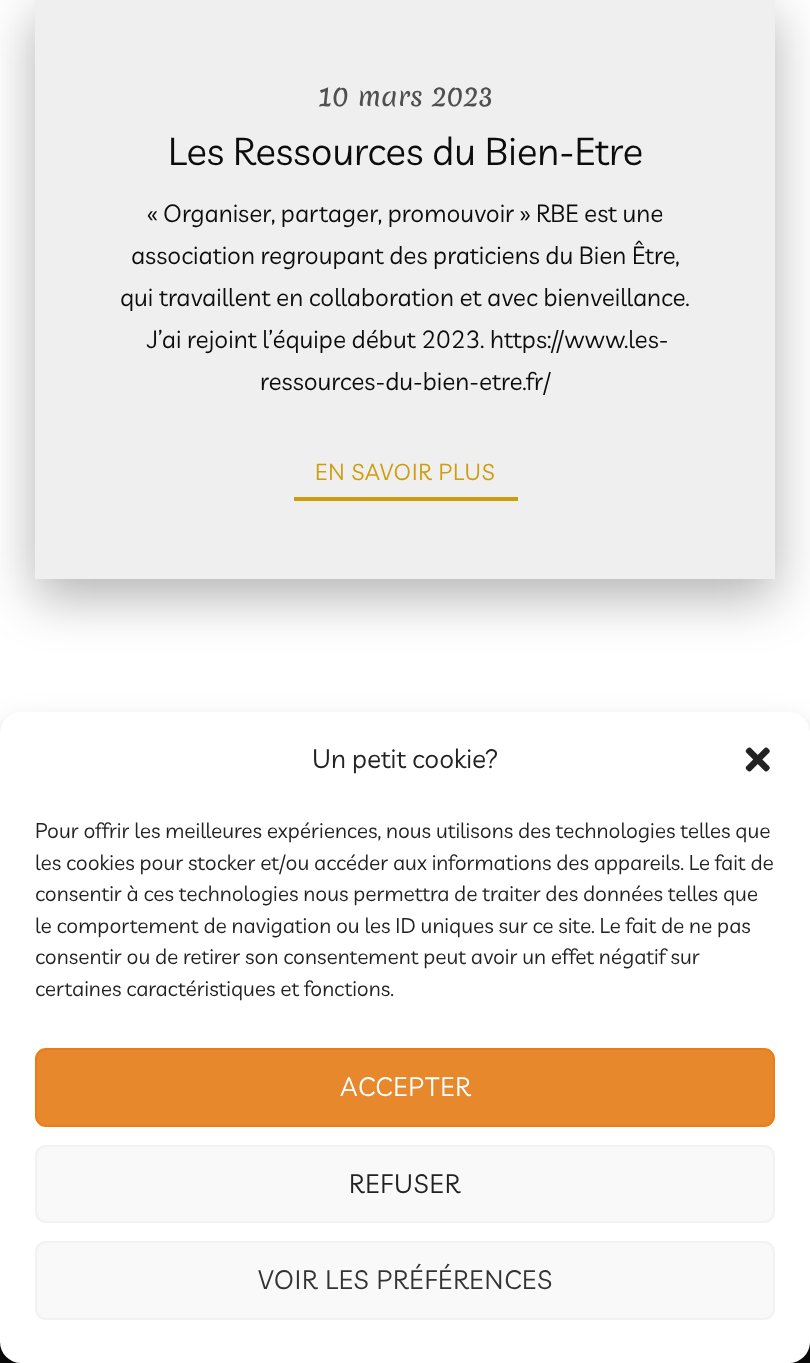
async function draw(canvas) {
  canvas.width = 810
  canvas.height = 1363
  const ctx = canvas.getContext('2d')
  ctx.miterLimit = 4
  ctx.fontKerning = 'normal'
  async function loadImage(src) {
    const img = new Image()
    img.src = src
    await img.decode()
    return img
  }

  ctx.fillStyle = '#fff'
  ctx.fillRect(0, 0, 810, 1363)
  ctx.fillStyle = '#0000004d'
  ctx.filter = 'blur(26px)'
  ctx.beginPath()
  ctx.rect(35, 14, 740, 583)
  ctx.fill()
  ctx.filter = 'none'
  ctx.fillStyle = '#efefef'
  ctx.fillRect(35, 0, 740, 579)
  ctx.font = '26.25px Merienda'
  ctx.fillStyle = '#505050'
  ctx.fillText('10 mars 2023', 318, 106)
  ctx.font = '38.5px Livvic'
  ctx.fillStyle = '#0c0c0c'
  ctx.fillText('Les Ressources du Bien-Etre', 168, 165)
  ctx.font = '24.5px Livvic'
  ctx.fillText('« Organiser, partager, promouvoir » RBE est une', 147, 222)
  ctx.fillText('association regroupant des praticiens du Bien Être,', 131, 264)
  ctx.fillText('qui travaillent en collaboration et avec bienveillance.', 120, 306)
  ctx.fillText('J’ai rejoint l’équipe début 2023. https://www.les-', 147, 348)
  ctx.fillText('ressources-du-bien-etre.fr/', 260, 390)
  ctx.fillStyle = '#cd9d0c'
  ctx.fillRect(294, 497, 224, 4)
  ctx.letterSpacing = '0.9px'
  ctx.font = '22.75px Livvic'
  ctx.fillText('EN SAVOIR PLUS', 315, 480)
  ctx.fillStyle = '#0c0c0c'
  ctx.fillRect(0, 1342, 810, 21)
  ctx.fillStyle = '#0000003b'
  ctx.filter = 'blur(5px)'
  ctx.beginPath()
  ctx.roundRect(0, 723, 810, 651, 21)
  ctx.fill()
  ctx.filter = 'none'
  ctx.fillStyle = '#00000030'
  ctx.filter = 'blur(17.5px)'
  ctx.beginPath()
  ctx.roundRect(0, 730, 810, 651, 21)
  ctx.fill()
  ctx.filter = 'none'
  ctx.fillStyle = '#fff'
  ctx.beginPath()
  ctx.roundRect(0, 712, 810, 651, 21)
  ctx.fill()
  ctx.letterSpacing = '0px'
  ctx.font = '26.25px Livvic'
  ctx.fillStyle = '#222'
  ctx.fillText('Un petit cookie?', 312, 768)
  ctx.drawImage(await loadImage('image0.png'), 745, 747, 25, 25)
  ctx.font = '21px Livvic'
  ctx.fillText('Pour offrir les meilleures expériences, nous utilisons des technologies telles que', 35, 838)
  ctx.fillText('les cookies pour stocker et/ou accéder aux informations des appareils. Le fait de', 35, 870)
  ctx.fillText('consentir à ces technologies nous permettra de traiter des données telles que', 35, 901)
  ctx.fillText('le comportement de navigation ou les ID uniques sur ce site. Le fait de ne pas', 35, 933)
  ctx.fillText('consentir ou de retirer son consentement peut avoir un effet négatif sur', 35, 964)
  ctx.fillText('certaines caractéristiques et fonctions.', 35, 996)
  ctx.fillStyle = '#e8882c'
  ctx.beginPath()
  ctx.roundRect(36, 1049, 738, 77, 10)
  ctx.fill()
  ctx.strokeStyle = '#ea7d13'
  ctx.lineWidth = 2
  ctx.stroke()
  ctx.letterSpacing = '0.9px'
  ctx.font = '26.25px Livvic'
  ctx.fillStyle = '#fff'
  ctx.fillText('ACCEPTER', 340, 1096)
  ctx.fillStyle = '#f9f9f9'
  ctx.beginPath()
  ctx.roundRect(36, 1146, 738, 76, 10)
  ctx.fill()
  ctx.strokeStyle = '#f2f2f2'
  ctx.stroke()
  ctx.fillStyle = '#222'
  ctx.fillText('REFUSER', 349, 1193)
  ctx.fillStyle = '#f9f9f9'
  ctx.beginPath()
  ctx.roundRect(36, 1242, 738, 77, 10)
  ctx.fill()
  ctx.stroke()
  ctx.fillStyle = '#333'
  ctx.fillText('VOIR LES PRÉFÉRENCES', 258, 1289)
}

draw(document.querySelector('canvas'))
